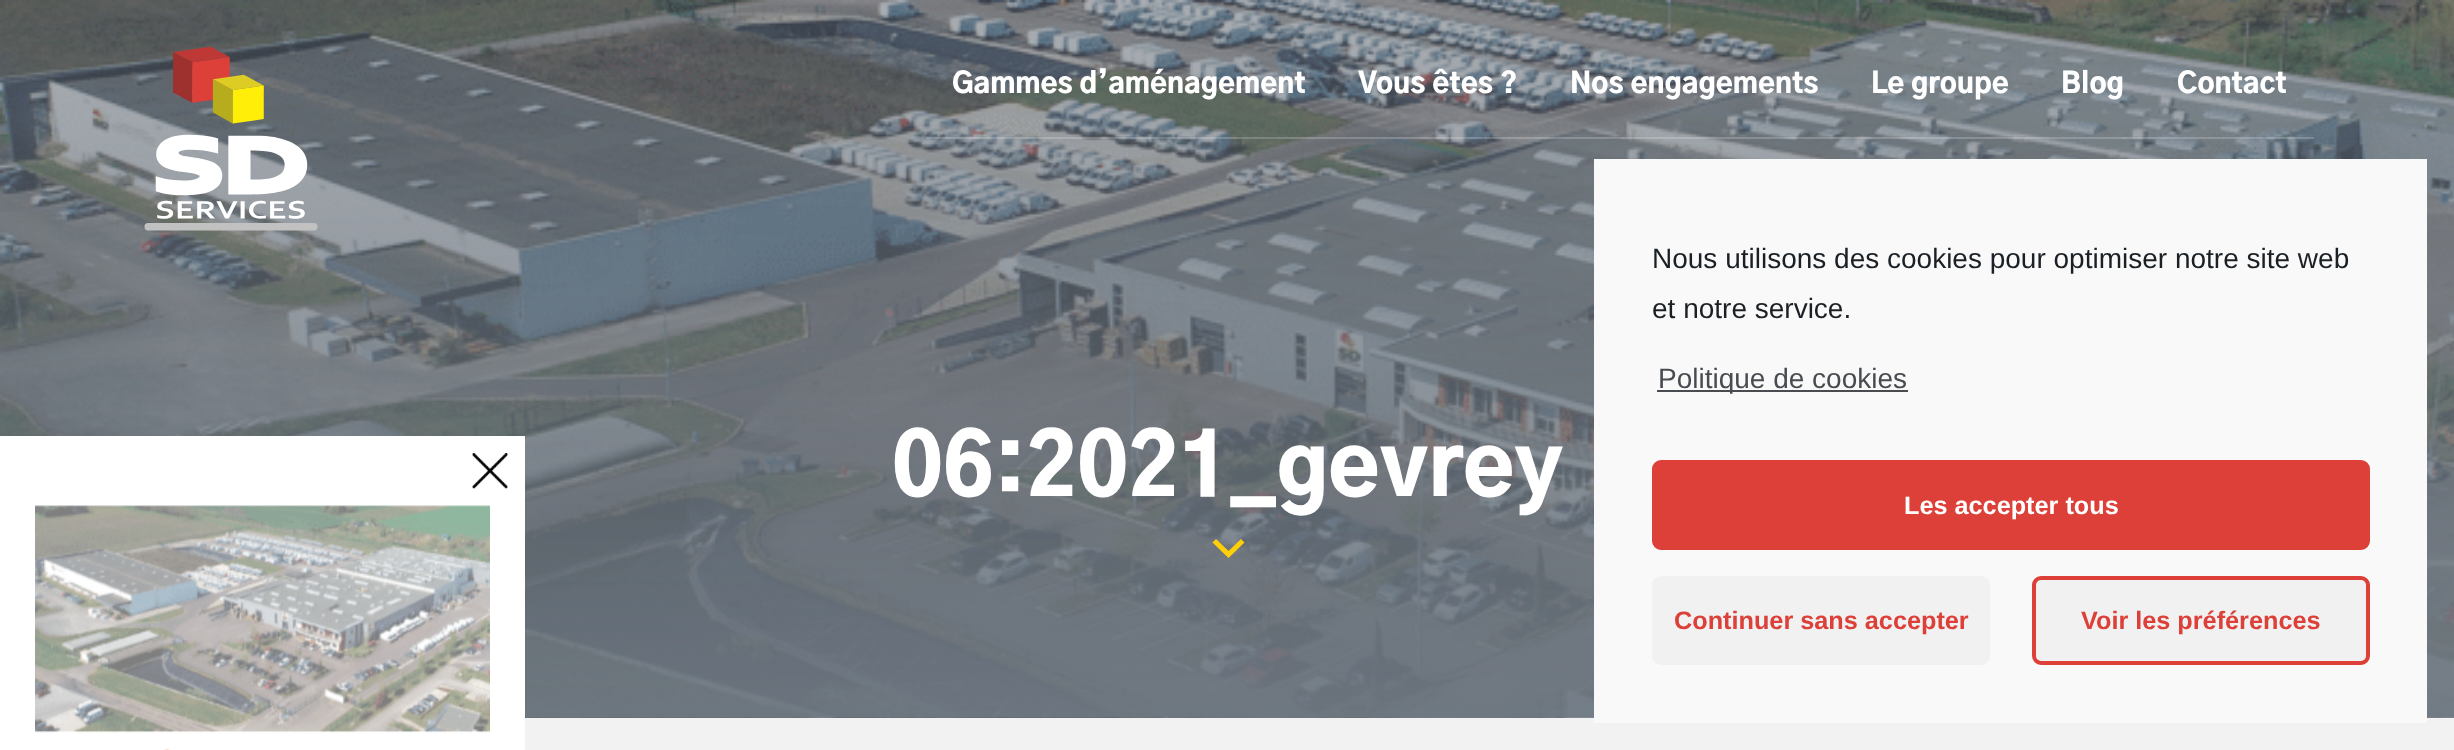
async function draw(canvas) {
  canvas.width = 2454
  canvas.height = 750
  const ctx = canvas.getContext('2d')
  ctx.miterLimit = 4
  ctx.fontKerning = 'normal'
  async function loadImage(src) {
    const img = new Image()
    img.src = src
    await img.decode()
    return img
  }

  ctx.fillStyle = '#f2f2f2'
  ctx.fillRect(0, 0, 2454, 750)
  ctx.fillStyle = '#6e7882'
  ctx.fillRect(0, 0, 2454, 718)
  ctx.drawImage(await loadImage('image1.png'), 0, 0, 2454, 718)
  ctx.drawImage(await loadImage('image0.png'), 144, 46, 174, 185)
  ctx.fillStyle = '#ffffff33'
  ctx.fillRect(926, 137, 1388, 2)
  ctx.font = '900 28px "Gothic A1"'
  ctx.fillStyle = '#fff'
  ctx.fillText('Gammes d’aménagement', 952, 93)
  ctx.fillText('Vous êtes ?', 1358, 93)
  ctx.fillText('Nos engagements', 1570, 93)
  ctx.fillText('Le groupe', 1871, 93)
  ctx.fillText('Blog', 2061, 93)
  ctx.fillText('Contact', 2177, 93)
  ctx.font = '900 84px "Gothic A1"'
  ctx.fillText('06:2021_gevrey', 892, 496)
  ctx.fillStyle = '#ffd008'
  ctx.beginPath()
  ctx.moveTo(1244.5, 542.5)
  ctx.lineTo(1241, 539)
  ctx.lineTo(1228.5, 551)
  ctx.lineTo(1216, 539)
  ctx.lineTo(1212.5, 542.5)
  ctx.lineTo(1228.5, 558)
  ctx.closePath()
  ctx.fill()
  ctx.fillStyle = '#fff'
  ctx.fillRect(0, 436, 525, 314)
  ctx.drawImage(await loadImage('image2.png'), 472, 453, 36, 36)
  ctx.drawImage(await loadImage('image3.png'), 35, 505, 455, 228)
  ctx.drawImage(await loadImage('image4.png'), 164, 748, 6, 2)
  ctx.fillStyle = '#f9f9f9'
  ctx.fillRect(1594, 159, 833, 564)
  ctx.font = '28px Liberation Sans'
  ctx.fillStyle = '#1b2025'
  ctx.fillText('Nous utilisons des cookies pour optimiser notre site web', 1652, 268)
  ctx.fillText('et notre service.', 1652, 318)
  ctx.fillStyle = '#484c50'
  ctx.fillRect(1657, 390, 251, 2)
  ctx.fillText('Politique de cookies', 1658, 388)
  ctx.fillStyle = '#dc4039'
  ctx.beginPath()
  ctx.roundRect(1654, 462, 714, 86, 7)
  ctx.fill()
  ctx.strokeStyle = '#dc4039'
  ctx.lineWidth = 4
  ctx.stroke()
  ctx.font = 'bold 25.25px Liberation Sans'
  ctx.fillStyle = '#fff'
  ctx.fillText('Les accepter tous', 1904, 514)
  ctx.fillStyle = '#f1f1f1'
  ctx.beginPath()
  ctx.roundRect(1652, 576, 338, 89, 9)
  ctx.fill()
  ctx.fillStyle = '#dc4039'
  ctx.fillText('Continuer sans accepter', 1674, 629)
  ctx.fillStyle = '#f1f1f1'
  ctx.beginPath()
  ctx.roundRect(2034, 578, 334, 85, 7)
  ctx.fill()
  ctx.stroke()
  ctx.fillStyle = '#dc4039'
  ctx.fillText('Voir les préférences', 2081, 629)
}

draw(document.querySelector('canvas'))
